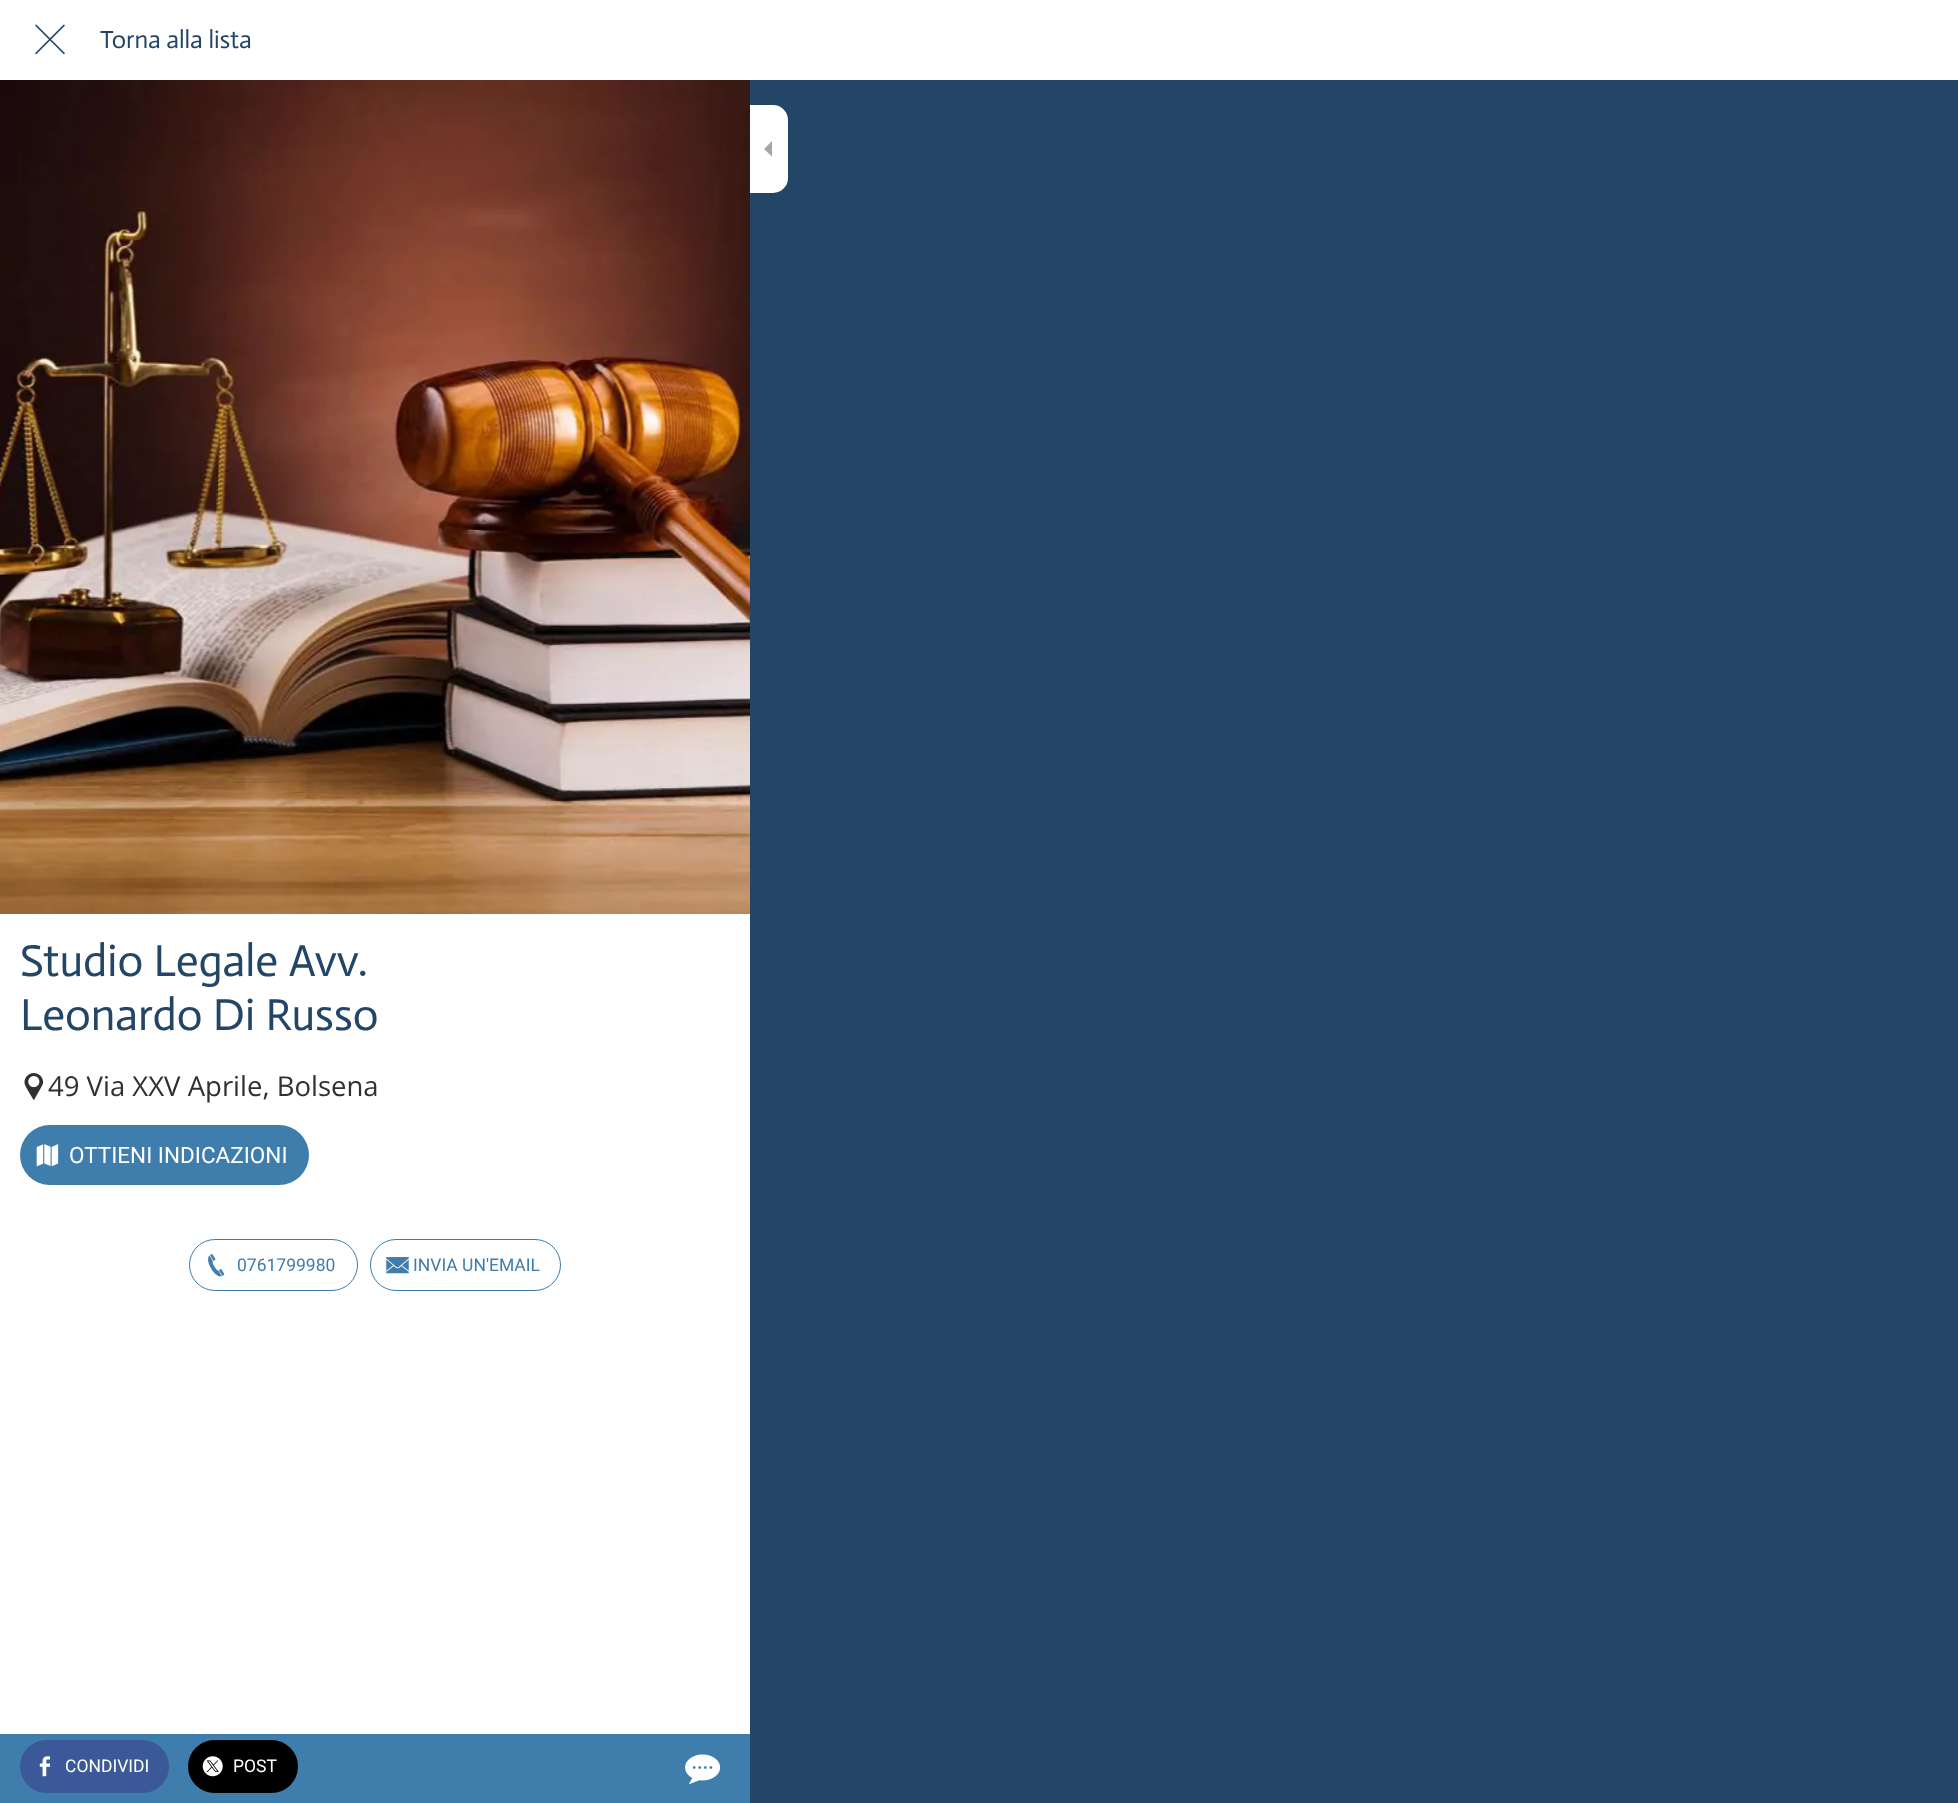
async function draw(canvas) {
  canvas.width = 1958
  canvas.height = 1803
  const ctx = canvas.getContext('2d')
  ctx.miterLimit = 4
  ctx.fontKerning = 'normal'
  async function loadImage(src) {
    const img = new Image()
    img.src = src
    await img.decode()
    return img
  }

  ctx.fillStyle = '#234667'
  ctx.fillRect(0, 0, 1958, 1803)
  ctx.fillStyle = '#fff'
  ctx.fillRect(0, 0, 1958, 80)
  ctx.drawImage(await loadImage('image0.png'), 35, 24, 30, 31)
  ctx.font = '25px Actor'
  ctx.fillStyle = '#234667'
  ctx.fillText('Torna alla lista', 100, 48)
  ctx.fillStyle = '#fff'
  ctx.beginPath()
  ctx.roundRect(750, 105, 38, 88, [0, 15, 15, 0])
  ctx.fill()
  ctx.fillStyle = '#a6a6a6'
  ctx.beginPath()
  ctx.moveTo(772, 141)
  ctx.lineTo(764, 149)
  ctx.lineTo(772, 156.5)
  ctx.closePath()
  ctx.fill()
  ctx.drawImage(await loadImage('image1.png'), 0, 80, 750, 834)
  ctx.fillStyle = '#fff'
  ctx.fillRect(0, 914, 750, 820)
  ctx.font = '45px Actor'
  ctx.fillStyle = '#234667'
  ctx.fillText('Studio Legale Avv.', 20, 976)
  ctx.fillText('Leonardo Di Russo', 20, 1030)
  ctx.drawImage(await loadImage('image2.png'), 24, 1073, 20, 28)
  ctx.font = '27.5px Open Sans'
  ctx.fillStyle = '#303030'
  ctx.fillText('49 Via XXV Aprile, Bolsena', 48, 1096)
  ctx.fillStyle = '#3f7dac'
  ctx.beginPath()
  ctx.roundRect(20, 1125, 289, 60, 30)
  ctx.fill()
  ctx.drawImage(await loadImage('image3.png'), 36, 1144, 23, 23)
  ctx.font = '22.5px Roboto'
  ctx.fillStyle = '#fff'
  ctx.fillText('OTTIENI INDICAZIONI', 69, 1163)
  ctx.beginPath()
  ctx.roundRect(189.5, 1239.5, 168, 51, 25.5)
  ctx.strokeStyle = '#3f7dac'
  ctx.stroke()
  ctx.drawImage(await loadImage('image4.png'), 208, 1254, 17, 23)
  ctx.font = '17.5px Roboto'
  ctx.fillStyle = '#3f7dac'
  ctx.fillText('0761799980', 237, 1271)
  ctx.beginPath()
  ctx.roundRect(370.5, 1239.5, 190, 51, 25.5)
  ctx.stroke()
  ctx.drawImage(await loadImage('image5.png'), 386, 1257, 23, 17)
  ctx.fillText('INVIA UN\'EMAIL', 413, 1271)
  ctx.fillRect(0, 1734, 750, 69)
  ctx.fillStyle = '#3b5999'
  ctx.beginPath()
  ctx.roundRect(20, 1740, 149, 53, 26.5)
  ctx.fill()
  ctx.drawImage(await loadImage('image6.png'), 39, 1756, 12, 21)
  ctx.fillStyle = '#fff'
  ctx.fillText('CONDIVIDI', 65, 1772)
  ctx.fillStyle = '#000'
  ctx.beginPath()
  ctx.roundRect(188, 1740, 110, 53, 26.5)
  ctx.fill()
  ctx.drawImage(await loadImage('image7.png'), 202, 1756, 21, 21)
  ctx.fillStyle = '#fff'
  ctx.fillText('POST', 233, 1772)
  ctx.drawImage(await loadImage('image8.png'), 685, 1754, 36, 31)
}

draw(document.querySelector('canvas'))
